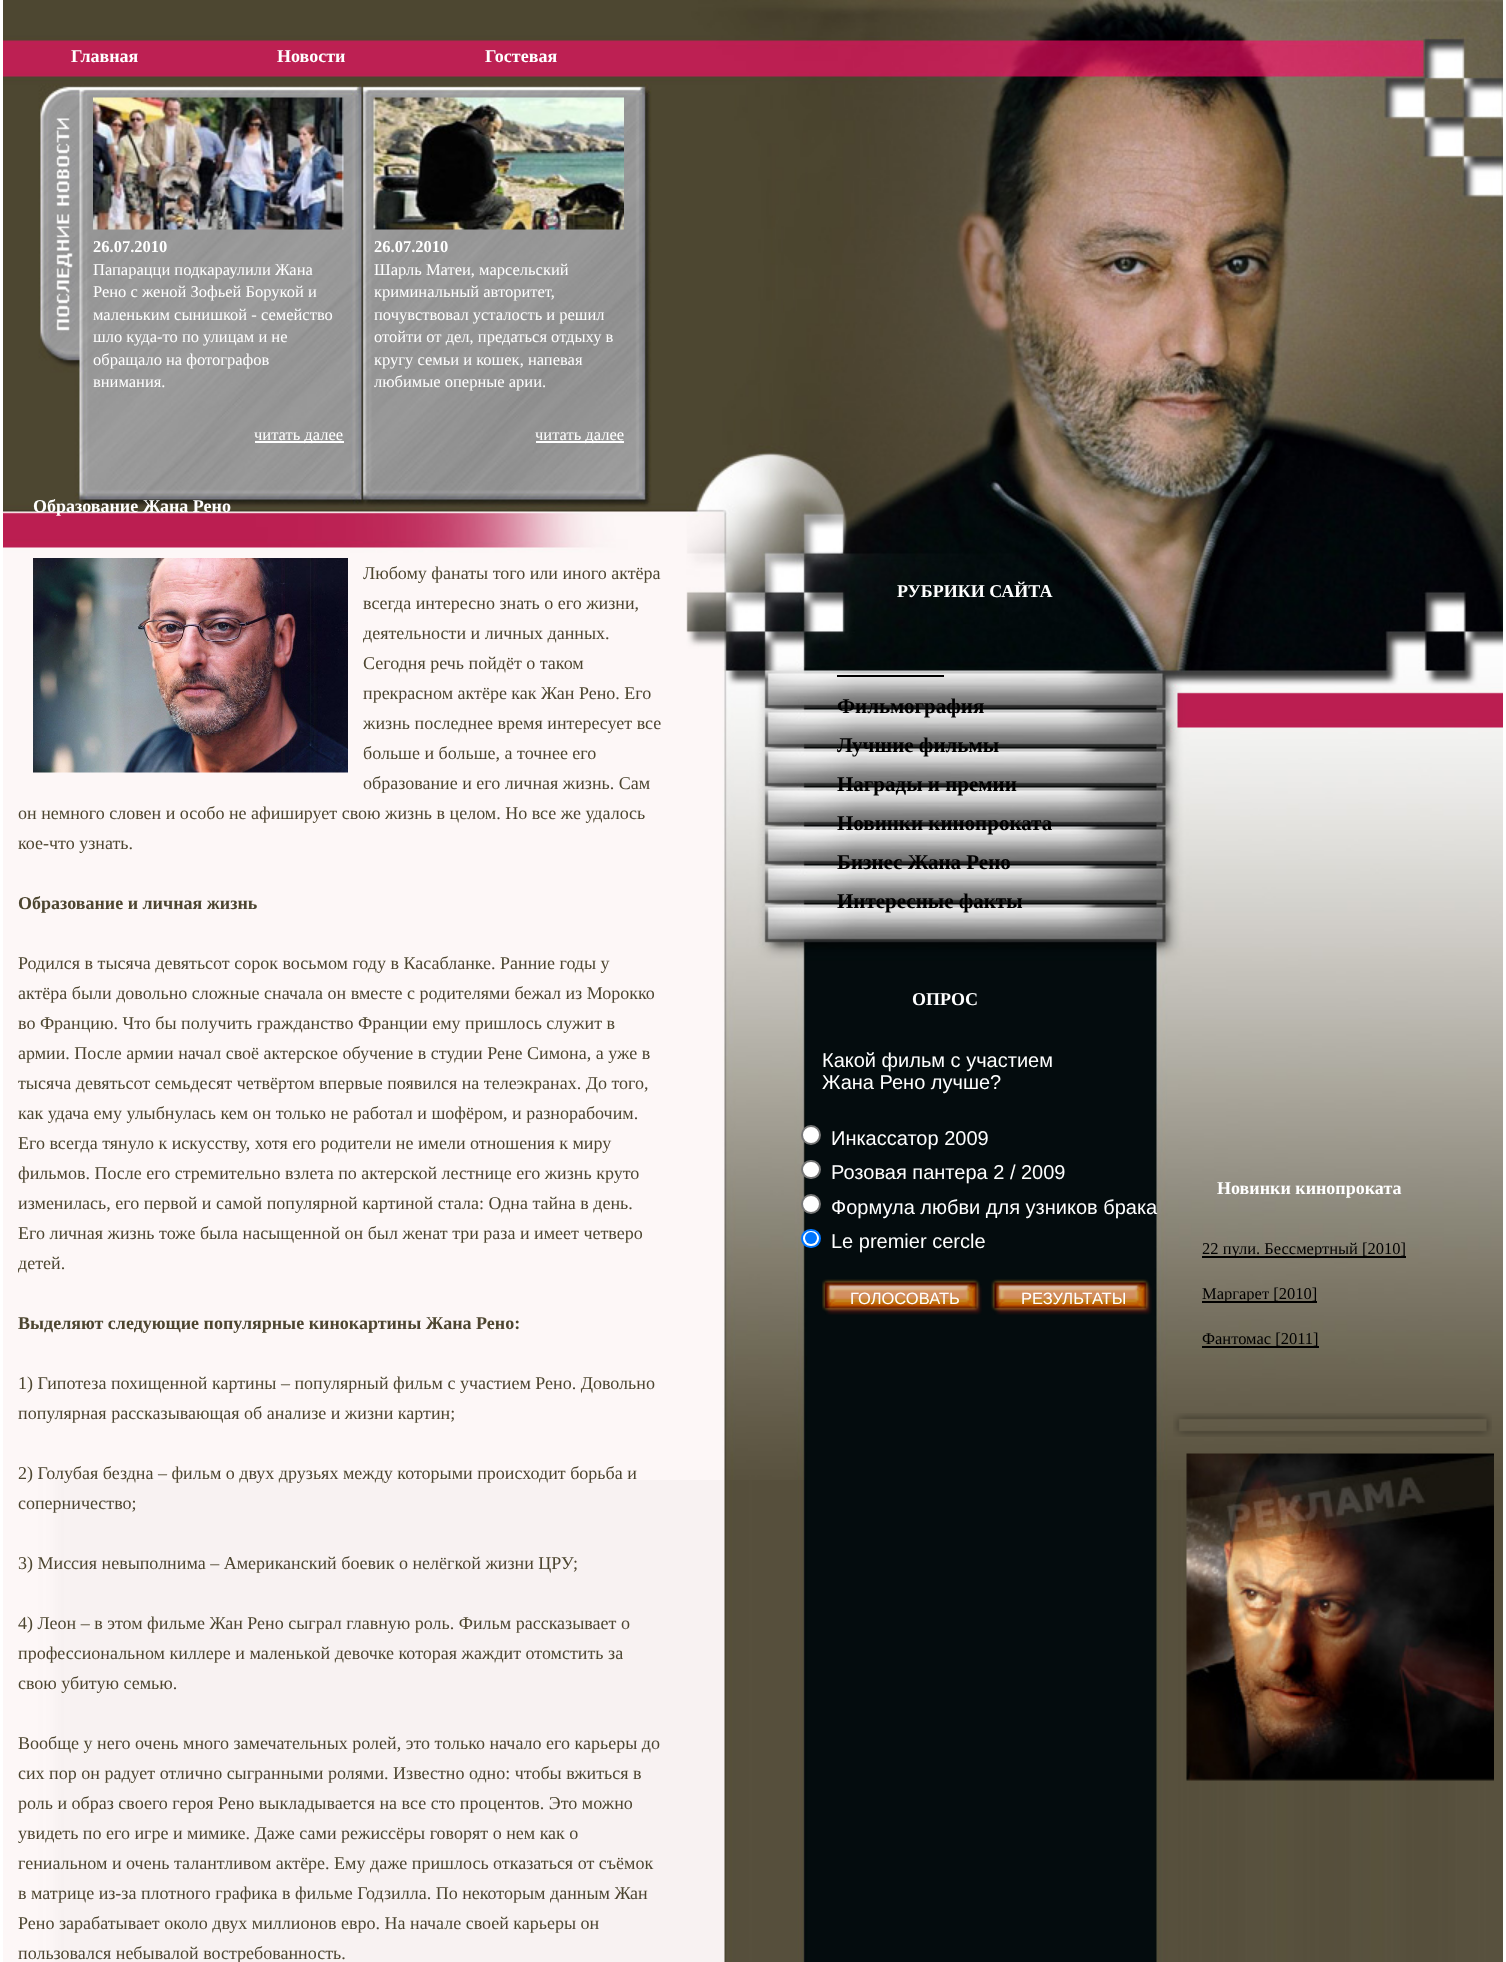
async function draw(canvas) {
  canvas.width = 1506
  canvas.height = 1962
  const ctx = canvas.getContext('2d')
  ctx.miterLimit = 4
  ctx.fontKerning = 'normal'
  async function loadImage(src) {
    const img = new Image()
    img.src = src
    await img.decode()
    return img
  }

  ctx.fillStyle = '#fff'
  ctx.fillRect(0, 0, 1506, 1962)
  ctx.drawImage(await loadImage('image0.png'), 3, 1480, 1500, 482)
  ctx.drawImage(await loadImage('image1.png'), 3, 0, 1500, 1480)
  ctx.font = 'bold 18px Liberation Serif'
  ctx.fillText('Главная', 71, 62)
  ctx.fillText('Новости', 277, 62)
  ctx.fillText('Гостевая', 485, 62)
  ctx.drawImage(await loadImage('image2.png'), 93, 97, 251, 133)
  ctx.font = 'bold 16.5px Liberation Serif'
  ctx.fillText('26.07.2010', 93, 252)
  ctx.font = '16.5px Liberation Serif'
  ctx.fillText('Папарацци подкараулили Жана', 93, 275)
  ctx.fillText('Рено с женой Зофьей Борукой и', 93, 297)
  ctx.fillText('маленьким сынишкой - семейство', 93, 320)
  ctx.fillText('шло куда-то по улицам и не', 93, 342)
  ctx.fillText('обращало на фотографов', 93, 365)
  ctx.fillText('внимания.', 93, 387)
  ctx.fillRect(255, 441, 89, 2)
  ctx.fillText('читать далее', 254, 440)
  ctx.drawImage(await loadImage('image3.png'), 373, 97, 251, 133)
  ctx.font = 'bold 16.5px Liberation Serif'
  ctx.fillText('26.07.2010', 374, 252)
  ctx.font = '16.5px Liberation Serif'
  ctx.fillText('Шарль Матеи, марсельский', 374, 275)
  ctx.fillText('криминальный авторитет,', 374, 297)
  ctx.fillText('почувствовал усталость и решил', 374, 320)
  ctx.fillText('отойти от дел, предаться отдыху в', 374, 342)
  ctx.fillText('кругу семьи и кошек, напевая', 374, 365)
  ctx.fillText('любимые оперные арии.', 374, 387)
  ctx.fillRect(536, 441, 88, 2)
  ctx.fillText('читать далее', 535, 440)
  ctx.font = 'bold 18px Liberation Serif'
  ctx.fillText('Образование Жана Рено', 33, 512)
  ctx.drawImage(await loadImage('image4.png'), 33, 558, 315, 215)
  ctx.font = '18px Liberation Serif'
  ctx.fillStyle = '#4d4630'
  ctx.fillText('Любому фанаты того или иного актёра', 363, 579)
  ctx.fillText('всегда интересно знать о его жизни,', 363, 609)
  ctx.fillText('деятельности и личных данных.', 363, 639)
  ctx.fillText('Сегодня речь пойдёт о таком', 363, 669)
  ctx.fillText('прекрасном актёре как Жан Рено. Его', 363, 699)
  ctx.fillText('жизнь последнее время интересует все', 363, 729)
  ctx.fillText('больше и больше, а точнее его', 363, 759)
  ctx.fillText('образование и его личная жизнь. Сам', 363, 789)
  ctx.fillText('он немного словен и особо не афиширует свою жизнь в целом. Но все же удалось', 18, 819)
  ctx.fillText('кое-что узнать.', 18, 849)
  ctx.font = 'bold 18px Liberation Serif'
  ctx.fillText('Образование и личная жизнь', 18, 909)
  ctx.font = '18px Liberation Serif'
  ctx.fillText('Родился в тысяча девятьсот сорок восьмом году в Касабланке. Ранние годы у', 18, 969)
  ctx.fillText('актёра были довольно сложные сначала он вместе с родителями бежал из Морокко', 18, 999)
  ctx.fillText('во Францию. Что бы получить гражданство Франции ему пришлось служит в', 18, 1029)
  ctx.fillText('армии. После армии начал своё актерское обучение в студии Рене Симона, а уже в', 18, 1059)
  ctx.fillText('тысяча девятьсот семьдесят четвёртом впервые появился на телеэкранах. До того,', 18, 1089)
  ctx.fillText('как удача ему улыбнулась кем он только не работал и шофёром, и разнорабочим.', 18, 1119)
  ctx.fillText('Его всегда тянуло к искусству, хотя его родители не имели отношения к миру', 18, 1149)
  ctx.fillText('фильмов. После его стремительно взлета по актерской лестнице его жизнь круто', 18, 1179)
  ctx.fillText('изменилась, его первой и самой популярной картиной стала: Одна тайна в день.', 18, 1209)
  ctx.fillText('Его личная жизнь тоже была насыщенной он был женат три раза и имеет четверо', 18, 1239)
  ctx.fillText('детей.', 18, 1269)
  ctx.font = 'bold 18px Liberation Serif'
  ctx.fillText('Выделяют следующие популярные кинокартины Жана Рено:', 18, 1329)
  ctx.font = '18px Liberation Serif'
  ctx.fillText('1) Гипотеза похищенной картины – популярный фильм с участием Рено. Довольно', 18, 1389)
  ctx.fillText('популярная рассказывающая об анализе и жизни картин;', 18, 1419)
  ctx.fillText('2) Голубая бездна – фильм о двух друзьях между которыми происходит борьба и', 18, 1479)
  ctx.fillText('соперничество;', 18, 1509)
  ctx.fillText('3) Миссия невыполнима – Американский боевик о нелёгкой жизни ЦРУ;', 18, 1569)
  ctx.fillText('4) Леон – в этом фильме Жан Рено сыграл главную роль. Фильм рассказывает о', 18, 1629)
  ctx.fillText('профессиональном киллере и маленькой девочке которая жаждит отомстить за', 18, 1659)
  ctx.fillText('свою убитую семью.', 18, 1689)
  ctx.fillText('Вообще у него очень много замечательных ролей, это только начало его карьеры до', 18, 1749)
  ctx.fillText('сих пор он радует отлично сыгранными ролями. Известно одно: чтобы вжиться в', 18, 1779)
  ctx.fillText('роль и образ своего героя Рено выкладывается на все сто процентов. Это можно', 18, 1809)
  ctx.fillText('увидеть по его игре и мимике. Даже сами режиссёры говорят о нем как о', 18, 1839)
  ctx.fillText('гениальном и очень талантливом актёре. Ему даже пришлось отказаться от съёмок', 18, 1869)
  ctx.fillText('в матрице из-за плотного графика в фильме Годзилла. По некоторым данным Жан', 18, 1899)
  ctx.fillText('Рено зарабатывает около двух миллионов евро. На начале своей карьеры он', 18, 1929)
  ctx.fillText('пользовался небывалой востребованность.', 18, 1959)
  ctx.font = 'bold 18px Liberation Serif'
  ctx.fillStyle = '#fff'
  ctx.fillText('РУБРИКИ САЙТА', 897, 597)
  ctx.fillStyle = '#000'
  ctx.fillRect(837, 675, 107, 2)
  ctx.font = 'bold 21px Liberation Serif'
  ctx.fillText('Фильмография', 837, 713)
  ctx.fillText('Лучшие фильмы', 837, 752)
  ctx.fillText('Награды и премии', 837, 791)
  ctx.fillText('Новинки кинопроката', 837, 830)
  ctx.fillText('Бизнес Жана Рено', 837, 869)
  ctx.fillText('Интересные факты', 837, 908)
  ctx.font = 'bold 18px Liberation Serif'
  ctx.fillStyle = '#fff'
  ctx.fillText('ОПРОС', 912, 1005)
  ctx.font = '20px Liberation Sans'
  ctx.fillText('Какой фильм с участием', 822, 1067)
  ctx.fillText('Жана Рено лучше?', 822, 1089)
  ctx.beginPath()
  ctx.arc(811, 1135, 9, 0, 2 * Math.PI)
  ctx.fill()
  ctx.strokeStyle = '#767676'
  ctx.lineWidth = 2
  ctx.stroke()
  ctx.fillText('Инкассатор 2009', 831, 1145)
  ctx.beginPath()
  ctx.roundRect(802, 1161, 18, 17, 8.5)
  ctx.fill()
  ctx.stroke()
  ctx.fillText('Розовая пантера 2 / 2009', 831, 1179)
  ctx.beginPath()
  ctx.arc(811, 1204, 9, 0, 2 * Math.PI)
  ctx.fill()
  ctx.stroke()
  ctx.fillText('Формула любви для узников брака', 831, 1214)
  ctx.beginPath()
  ctx.roundRect(802, 1230, 18, 17, 8.5)
  ctx.fill()
  ctx.strokeStyle = '#0075ff'
  ctx.stroke()
  ctx.fillStyle = '#0075ff'
  ctx.beginPath()
  ctx.arc(811, 1238, 6, 0, 2 * Math.PI)
  ctx.fill()
  ctx.fillStyle = '#fff'
  ctx.fillText('Le premier cercle', 831, 1248)
  ctx.drawImage(await loadImage('image5.png'), 822, 1279, 160, 36)
  ctx.font = '16.5px Liberation Sans'
  ctx.fillText('ГОЛОСОВАТЬ', 850, 1304)
  ctx.drawImage(await loadImage('image6.png'), 991, 1279, 161, 36)
  ctx.fillText('РЕЗУЛЬТАТЫ', 1021, 1304)
  ctx.font = 'bold 18px Liberation Serif'
  ctx.fillText('Новинки кинопроката', 1217, 1194)
  ctx.fillStyle = '#000'
  ctx.fillRect(1202, 1256, 204, 2)
  ctx.font = '16.5px Liberation Serif'
  ctx.fillText('22 пули. Бессмертный [2010]', 1202, 1254)
  ctx.fillRect(1202, 1301, 115, 2)
  ctx.fillText('Маргарет [2010]', 1202, 1299)
  ctx.fillRect(1202, 1346, 117, 2)
  ctx.fillText('Фантомас [2011]', 1202, 1344)
  ctx.drawImage(await loadImage('image7.png'), 1173, 1413, 319, 24)
  ctx.drawImage(await loadImage('image8.png'), 1186, 1453, 308, 328)
}

draw(document.querySelector('canvas'))
